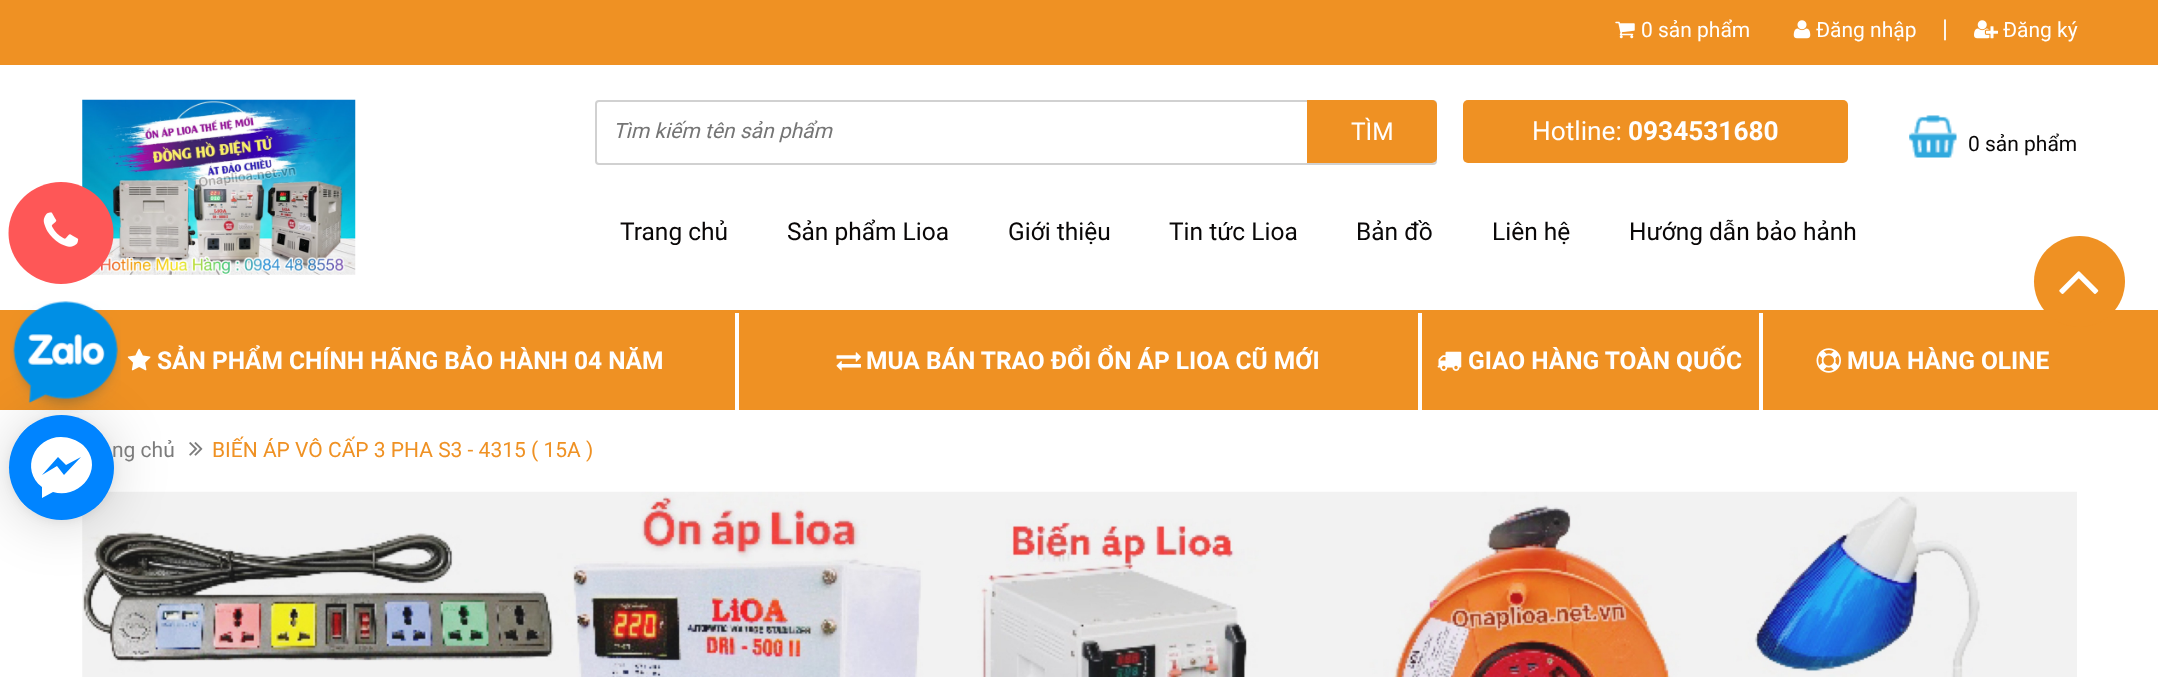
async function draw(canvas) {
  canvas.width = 2158
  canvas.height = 677
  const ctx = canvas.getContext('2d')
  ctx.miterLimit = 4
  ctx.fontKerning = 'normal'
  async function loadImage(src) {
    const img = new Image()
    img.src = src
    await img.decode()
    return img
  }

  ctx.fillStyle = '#fff'
  ctx.fillRect(0, 0, 2158, 677)
  ctx.drawImage(await loadImage('image4.png'), 82, 99, 274, 176)
  ctx.fillStyle = '#fe5757'
  ctx.beginPath()
  ctx.ellipse(61, 233, 52.5, 51, 0, 0, 2 * Math.PI)
  ctx.fill()
  ctx.drawImage(await loadImage('image0.png'), 43, 212, 36, 35)
  ctx.fillStyle = '#ef9123'
  ctx.fillRect(0, 0, 2158, 65)
  ctx.drawImage(await loadImage('image1.png'), 1615, 21, 20, 18)
  ctx.font = '21px Roboto'
  ctx.fillStyle = '#fff'
  ctx.fillText('0 sản phẩm', 1641, 37)
  ctx.drawImage(await loadImage('image2.png'), 1793, 20, 18, 19)
  ctx.fillText('Đăng nhập', 1816, 37)
  ctx.font = '24.5px Roboto'
  ctx.fillText('|', 1942, 37)
  ctx.drawImage(await loadImage('image3.png'), 1974, 20, 24, 19)
  ctx.font = '21px Roboto'
  ctx.fillText('Đăng ký', 2003, 37)
  ctx.beginPath()
  ctx.roundRect(596, 101, 840, 63, 3)
  ctx.strokeStyle = '#d1d1d1'
  ctx.lineWidth = 2
  ctx.stroke()
  ctx.font = 'italic 21px Roboto'
  ctx.fillStyle = '#757575'
  ctx.fillText('Tìm kiếm tên sản phẩm', 613, 138)
  ctx.fillStyle = '#ef9123'
  ctx.beginPath()
  ctx.roundRect(1307, 100, 130, 63, [0, 5, 5, 0])
  ctx.fill()
  ctx.font = '24.5px Roboto'
  ctx.fillStyle = '#fff'
  ctx.fillText('TÌM', 1351, 140)
  ctx.fillStyle = '#ef9123'
  ctx.beginPath()
  ctx.roundRect(1463, 100, 385, 63, 5)
  ctx.fill()
  ctx.font = '26.25px Roboto'
  ctx.fillStyle = '#fff'
  ctx.fillText('Hotline:', 1532, 140)
  ctx.font = 'bold 26.25px Roboto'
  ctx.fillText('0934531680', 1628, 140)
  ctx.drawImage(await loadImage('image5.png'), 1909, 115, 48, 43)
  ctx.font = '21px Roboto'
  ctx.fillStyle = '#090707'
  ctx.fillText('0 sản phẩm', 1968, 151)
  ctx.font = '24.5px Roboto'
  ctx.fillText('Trang chủ', 620, 240)
  ctx.fillText('Sản phẩm Lioa', 787, 240)
  ctx.fillText('Giới thiệu', 1008, 240)
  ctx.fillText('Tin tức Lioa', 1169, 240)
  ctx.fillText('Bản đồ', 1356, 240)
  ctx.fillText('Liên hệ', 1492, 240)
  ctx.fillText('Hướng dẫn bảo hảnh', 1629, 240)
  ctx.fillStyle = '#ef9123'
  ctx.fillRect(0, 310, 2158, 100)
  ctx.beginPath()
  ctx.arc(2079.5, 281.5, 45.5, 0, 2 * Math.PI)
  ctx.fill()
  ctx.drawImage(await loadImage('image6.png'), 2059, 271, 40, 23)
  ctx.drawImage(await loadImage('image8.png'), 127, 348, 24, 23)
  ctx.drawImage(await loadImage('image12.png'), 189, 442, 14, 14)
  ctx.drawImage(await loadImage('image13.png'), 82, 491, 1995, 186)
  ctx.fillStyle = '#00000029'
  ctx.filter = 'blur(28px)'
  ctx.beginPath()
  ctx.roundRect(9, 418, 105, 105, 52.5)
  ctx.fill()
  ctx.filter = 'none'
  ctx.fillStyle = '#0000000f'
  ctx.filter = 'blur(5px)'
  ctx.beginPath()
  ctx.roundRect(9, 417, 105, 105, 52.5)
  ctx.fill()
  ctx.filter = 'none'
  ctx.drawImage(await loadImage('image7.png'), 10, 301, 111, 112)
  ctx.font = '21px Roboto'
  ctx.fillStyle = '#7c7c7c'
  ctx.fillText('ng chủ', 112, 457)
  ctx.fillStyle = '#0084ff'
  ctx.beginPath()
  ctx.arc(61.5, 467.5, 52.5, 0, 2 * Math.PI)
  ctx.fill()
  ctx.save()
  ctx.beginPath()
  ctx.roundRect(9, 415, 105, 105, 52.5)
  ctx.clip()
  ctx.fillRect(19, 425, 84, 84)
  ctx.restore()
  ctx.fillStyle = '#fff'
  ctx.beginPath()
  ctx.moveTo(61, 437)
  ctx.bezierCurveTo(34, 437, 20, 470, 42, 487)
  ctx.lineTo(42, 498)
  ctx.lineTo(53, 492)
  ctx.bezierCurveTo(81, 500, 106, 467, 83, 445)
  ctx.bezierCurveTo(77, 440, 69, 437, 61, 437)
  ctx.closePath()
  ctx.moveTo(64, 475)
  ctx.lineTo(57, 466)
  ctx.lineTo(42, 475)
  ctx.lineTo(58, 457)
  ctx.lineTo(66, 465)
  ctx.lineTo(81, 457)
  ctx.closePath()
  ctx.fill()
  ctx.fillRect(735, 313, 4, 97)
  ctx.font = 'bold 24.5px Roboto'
  ctx.fillText('SẢN PHẨM CHÍNH HÃNG BẢO HÀNH 04 NĂM', 157, 369)
  ctx.fillRect(1418, 313, 4, 97)
  ctx.drawImage(await loadImage('image9.png'), 836, 352, 25, 19)
  ctx.fillText('MUA BÁN TRAO ĐỔI ỔN ÁP LIOA CŨ MỚI', 866, 369)
  ctx.fillRect(1759, 313, 4, 97)
  ctx.drawImage(await loadImage('image10.png'), 1437, 351, 25, 20)
  ctx.fillText('GIAO HÀNG TOÀN QUỐC', 1468, 369)
  ctx.drawImage(await loadImage('image11.png'), 1816, 348, 25, 25)
  ctx.fillText('MUA HÀNG OLINE', 1847, 369)
  ctx.font = '21px Roboto'
  ctx.fillStyle = '#ef9123'
  ctx.fillText('BIẾN ÁP VÔ CẤP 3 PHA S3 - 4315 ( 15A )', 212, 457)
}

draw(document.querySelector('canvas'))
